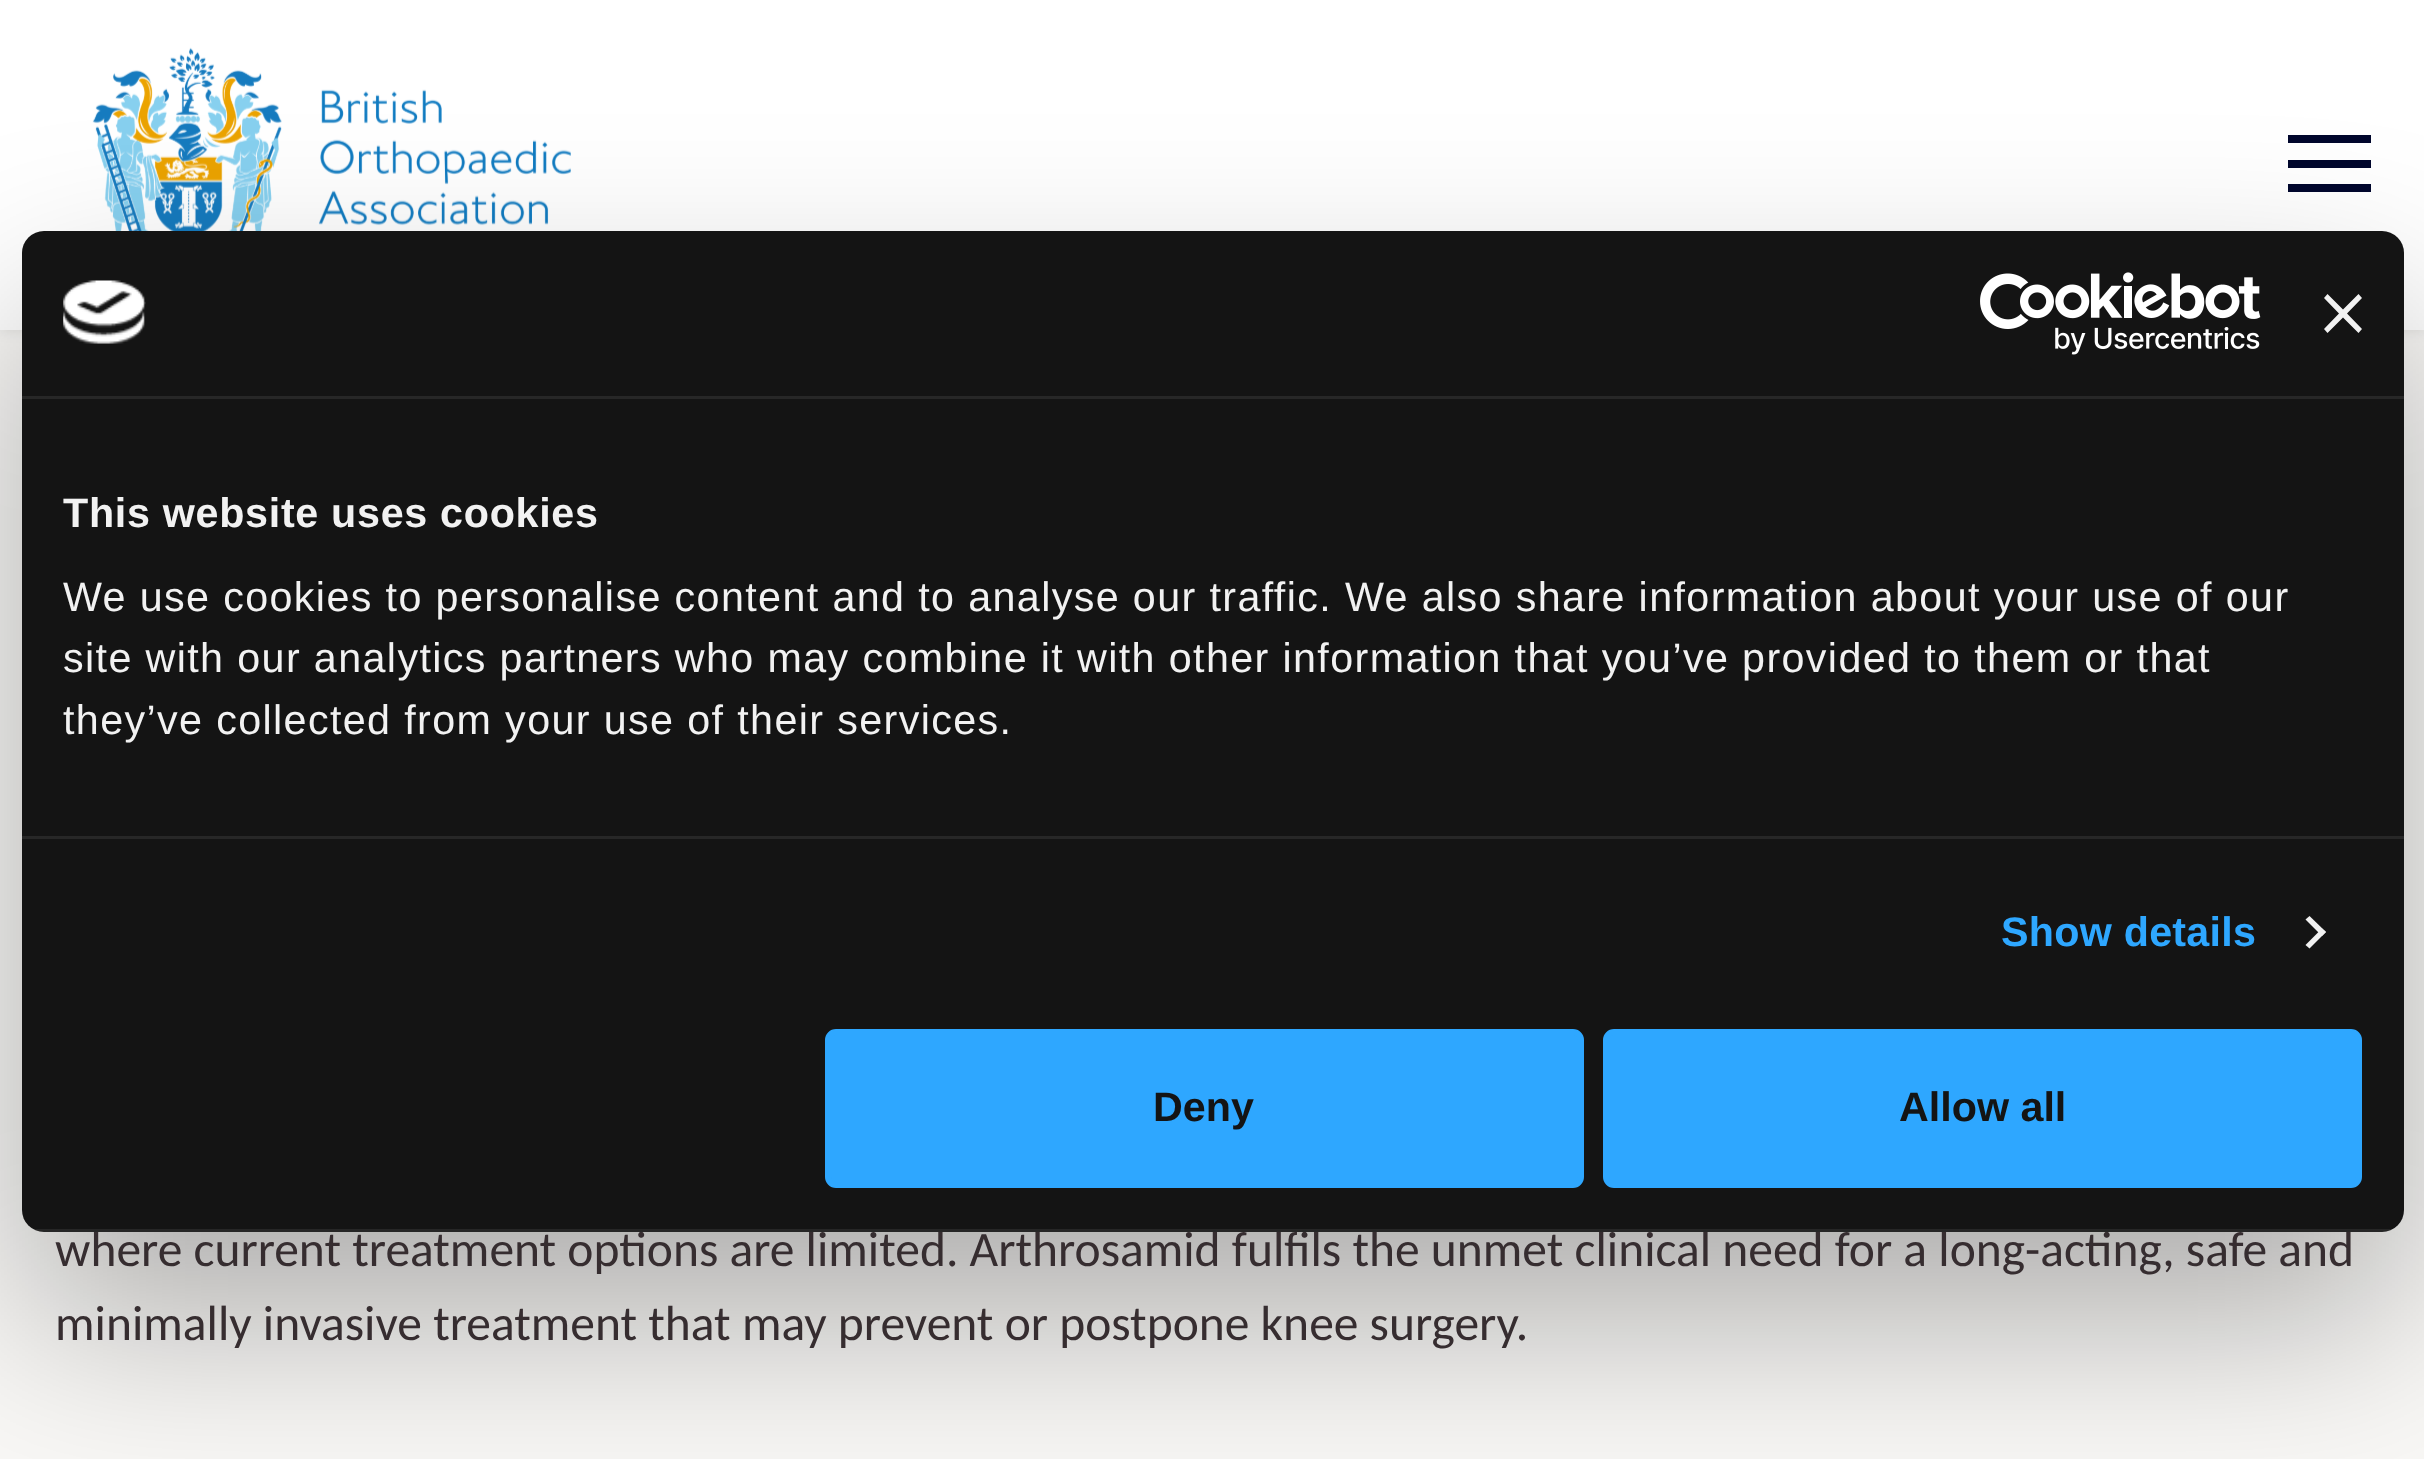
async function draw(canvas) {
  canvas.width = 2424
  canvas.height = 1459
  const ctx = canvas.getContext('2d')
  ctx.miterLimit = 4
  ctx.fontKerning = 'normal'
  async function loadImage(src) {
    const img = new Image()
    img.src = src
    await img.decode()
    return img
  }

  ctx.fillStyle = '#f9f8f6'
  ctx.fillRect(0, 0, 2424, 1459)
  ctx.fillStyle = '#00000012'
  ctx.filter = 'blur(5.5px)'
  ctx.beginPath()
  ctx.rect(0, 3, 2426, 330)
  ctx.fill()
  ctx.filter = 'none'
  ctx.fillStyle = '#fff'
  ctx.fillRect(0, 0, 2424, 330)
  ctx.drawImage(await loadImage('image2.png'), 92, 47, 479, 184)
  ctx.fillStyle = '#00072d'
  ctx.fillRect(2288, 160, 83, 8)
  ctx.fillRect(2288, 135, 83, 8)
  ctx.fillRect(2288, 184, 83, 8)
  ctx.fillStyle = '#0000004d'
  ctx.filter = 'blur(93.5px)'
  ctx.beginPath()
  ctx.roundRect(22, 319, 2382, 1001, 22)
  ctx.fill()
  ctx.filter = 'none'
  ctx.font = '49.5px Carlito'
  ctx.fillStyle = '#362d30'
  ctx.fillText('where current treatment options are limited. Arthrosamid fulfils the unmet clinical need for a long-acting, safe and', 55, 1266)
  ctx.fillStyle = '#141414'
  ctx.beginPath()
  ctx.roundRect(22, 231, 2382, 1001, 22)
  ctx.fill()
  ctx.fillStyle = '#272727'
  ctx.fillRect(22, 396, 2382, 3)
  ctx.drawImage(await loadImage('image0.png'), 63, 280, 83, 64)
  ctx.drawImage(await loadImage('image1.png'), 1980, 272, 281, 83)
  ctx.fillStyle = '#f2f2f2'
  ctx.beginPath()
  ctx.moveTo(2362, 298)
  ctx.lineTo(2358.5, 294)
  ctx.lineTo(2343, 309.5)
  ctx.lineTo(2327.5, 294)
  ctx.lineTo(2324, 298)
  ctx.lineTo(2339, 313.5)
  ctx.lineTo(2324, 329)
  ctx.lineTo(2327.5, 333)
  ctx.lineTo(2343, 317.5)
  ctx.lineTo(2358.5, 333)
  ctx.lineTo(2362, 329)
  ctx.lineTo(2347, 313.5)
  ctx.closePath()
  ctx.fill()
  ctx.fillStyle = '#272727'
  ctx.fillRect(22, 836, 2382, 3)
  ctx.letterSpacing = '0.7px'
  ctx.font = 'bold 41.25px Liberation Sans'
  ctx.fillStyle = '#f2f2f2'
  ctx.fillText('This website uses cookies', 63, 527)
  ctx.letterSpacing = '1.38px'
  ctx.font = '41.25px Liberation Sans'
  ctx.fillText('We use cookies to personalise content and to analyse our traffic. We also share information about your use of our', 63, 611)
  ctx.fillText('site with our analytics partners who may combine it with other information that you’ve provided to them or that', 63, 672)
  ctx.fillText('they’ve collected from your use of their services.', 63, 734)
  ctx.letterSpacing = '0.25px'
  ctx.font = 'bold 41.25px Liberation Sans'
  ctx.fillStyle = '#2ea7ff'
  ctx.fillText('Show details', 2001, 946)
  ctx.fillStyle = '#f2f2f2'
  ctx.beginPath()
  ctx.moveTo(2309.5, 916)
  ctx.lineTo(2326, 932)
  ctx.lineTo(2322, 936)
  ctx.lineTo(2305.5, 919.5)
  ctx.closePath()
  ctx.fill()
  ctx.beginPath()
  ctx.moveTo(2322, 928.5)
  ctx.lineTo(2326, 932)
  ctx.lineTo(2309.5, 948.5)
  ctx.lineTo(2305.5, 945)
  ctx.closePath()
  ctx.fill()
  ctx.save()
  ctx.beginPath()
  ctx.roundRect(22, 231, 2382, 1001, 22)
  ctx.clip()
  ctx.fillStyle = '#ffffff14'
  ctx.fillRect(33, 1229, 2360, 3)
  ctx.restore()
  ctx.fillStyle = '#2ea7ff'
  ctx.beginPath()
  ctx.roundRect(828, 1032, 753, 153, 8)
  ctx.fill()
  ctx.strokeStyle = '#2ea7ff'
  ctx.lineWidth = 6
  ctx.stroke()
  ctx.letterSpacing = '0px'
  ctx.fillStyle = '#141414'
  ctx.fillText('Deny', 1153, 1121)
  ctx.fillStyle = '#2ea7ff'
  ctx.beginPath()
  ctx.roundRect(1606, 1032, 753, 153, 8)
  ctx.fill()
  ctx.stroke()
  ctx.fillStyle = '#141414'
  ctx.fillText('Allow all', 1899, 1121)
  ctx.font = '49.5px Carlito'
  ctx.fillStyle = '#362d30'
  ctx.fillText('minimally invasive treatment that may prevent or postpone knee surgery.', 55, 1340)
}

draw(document.querySelector('canvas'))
